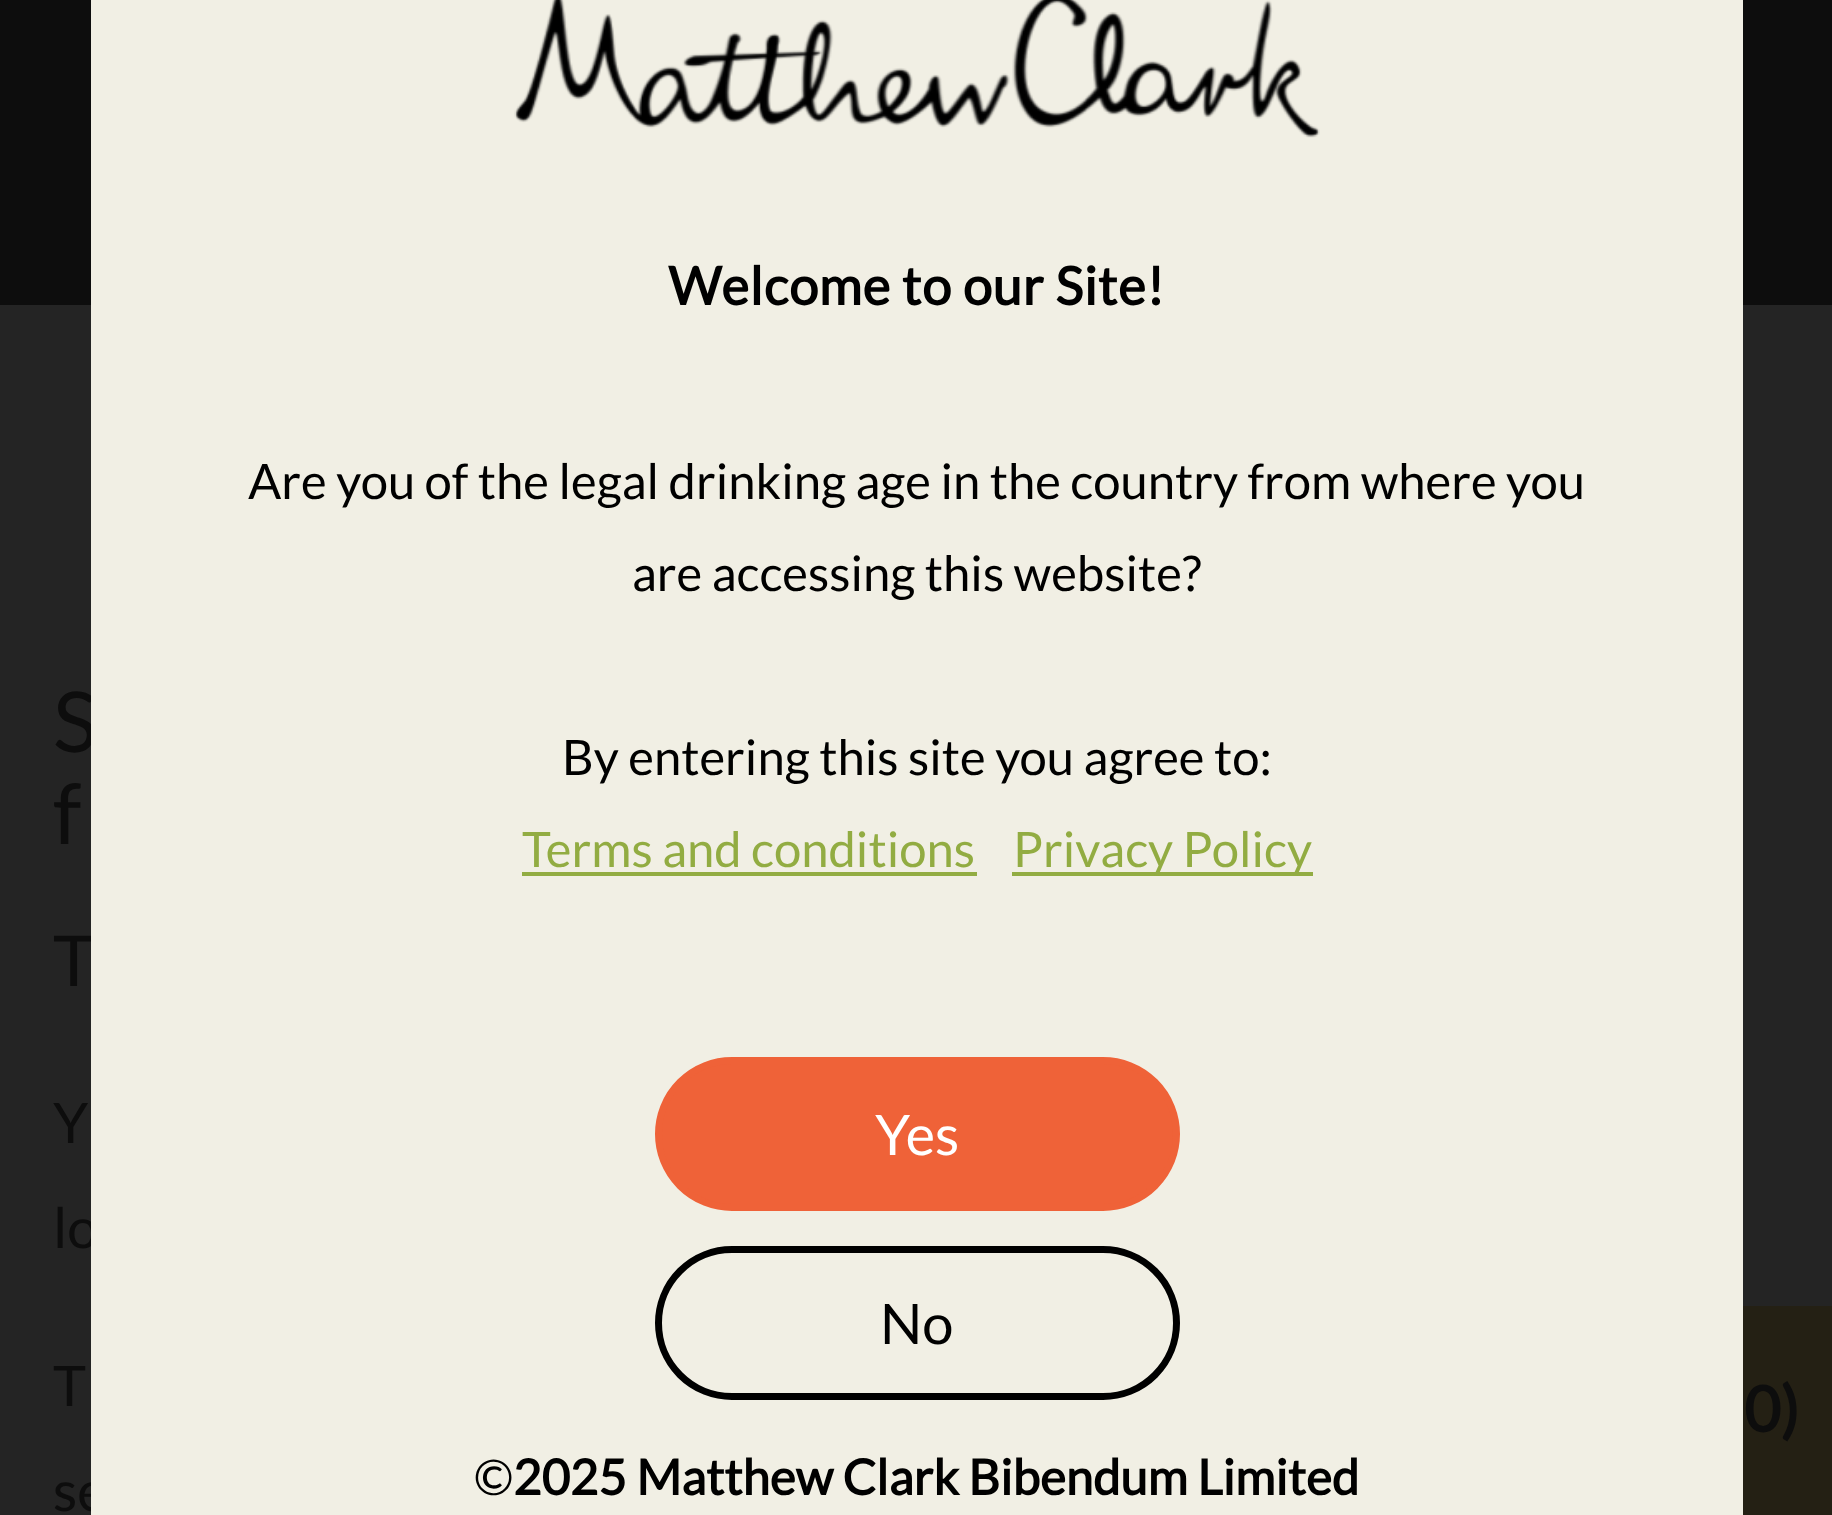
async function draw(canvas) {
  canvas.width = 1832
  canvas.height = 1515
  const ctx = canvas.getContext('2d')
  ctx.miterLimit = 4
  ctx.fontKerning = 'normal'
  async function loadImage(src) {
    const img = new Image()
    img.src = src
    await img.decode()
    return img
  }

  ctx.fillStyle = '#242424'
  ctx.fillRect(0, 0, 1832, 1515)
  ctx.fillStyle = '#0d0d0d'
  ctx.fillRect(0, 0, 1832, 305)
  ctx.font = '84px Lato'
  ctx.fillText('S', 53, 752)
  ctx.fillText('f', 53, 844)
  ctx.font = '70px Lato'
  ctx.fillText('T', 53, 986)
  ctx.font = '56px Lato'
  ctx.fillText('Y', 53, 1143)
  ctx.fillText('lo', 53, 1248)
  ctx.fillText('T', 53, 1406)
  ctx.fillText('se', 53, 1511)
  ctx.fillStyle = '#f1efe4'
  ctx.fillRect(91, 0, 1652, 1515)
  ctx.drawImage(await loadImage('image0.png'), 514, 0, 806, 138)
  ctx.letterSpacing = '0.7px'
  ctx.font = 'bold 52.5px Lato'
  ctx.fillStyle = '#000'
  ctx.fillText('Welcome to our Site!', 668, 305)
  ctx.letterSpacing = '0px'
  ctx.font = '49px Lato'
  ctx.fillText('Are you of the legal drinking age in the country from where you', 248, 499)
  ctx.fillText('are accessing this website?', 632, 591)
  ctx.fillText('By entering this site you agree to:', 562, 775)
  ctx.fillStyle = '#92ac42'
  ctx.fillText('Terms and conditions', 522, 867)
  ctx.fillRect(522, 872, 455, 4)
  ctx.fillRect(1012, 872, 301, 4)
  ctx.fillText('Privacy Policy', 1013, 867)
  ctx.fillStyle = '#ef6238'
  ctx.beginPath()
  ctx.roundRect(658.5, 1060.5, 518, 147, 73.5)
  ctx.fill()
  ctx.strokeStyle = '#ef6238'
  ctx.lineWidth = 7
  ctx.stroke()
  ctx.font = '56px Lato'
  ctx.fillStyle = '#fff'
  ctx.fillText('Yes', 875, 1155)
  ctx.beginPath()
  ctx.roundRect(658.5, 1249.5, 518, 147, 73.5)
  ctx.strokeStyle = '#000'
  ctx.stroke()
  ctx.fillStyle = '#000'
  ctx.fillText('No', 880, 1344)
  ctx.font = '49px Lato'
  ctx.fillText('©', 474, 1495)
  ctx.font = 'bold 49px Lato'
  ctx.fillText('2025 Matthew Clark Bibendum Limited', 513, 1495)
  ctx.fillStyle = '#242014'
  ctx.fillRect(1743, 1306, 89, 209)
  ctx.font = 'bold 63px Lato'
  ctx.fillStyle = '#0d0d0d'
  ctx.fillText('0)', 1744, 1432)
}

draw(document.querySelector('canvas'))
